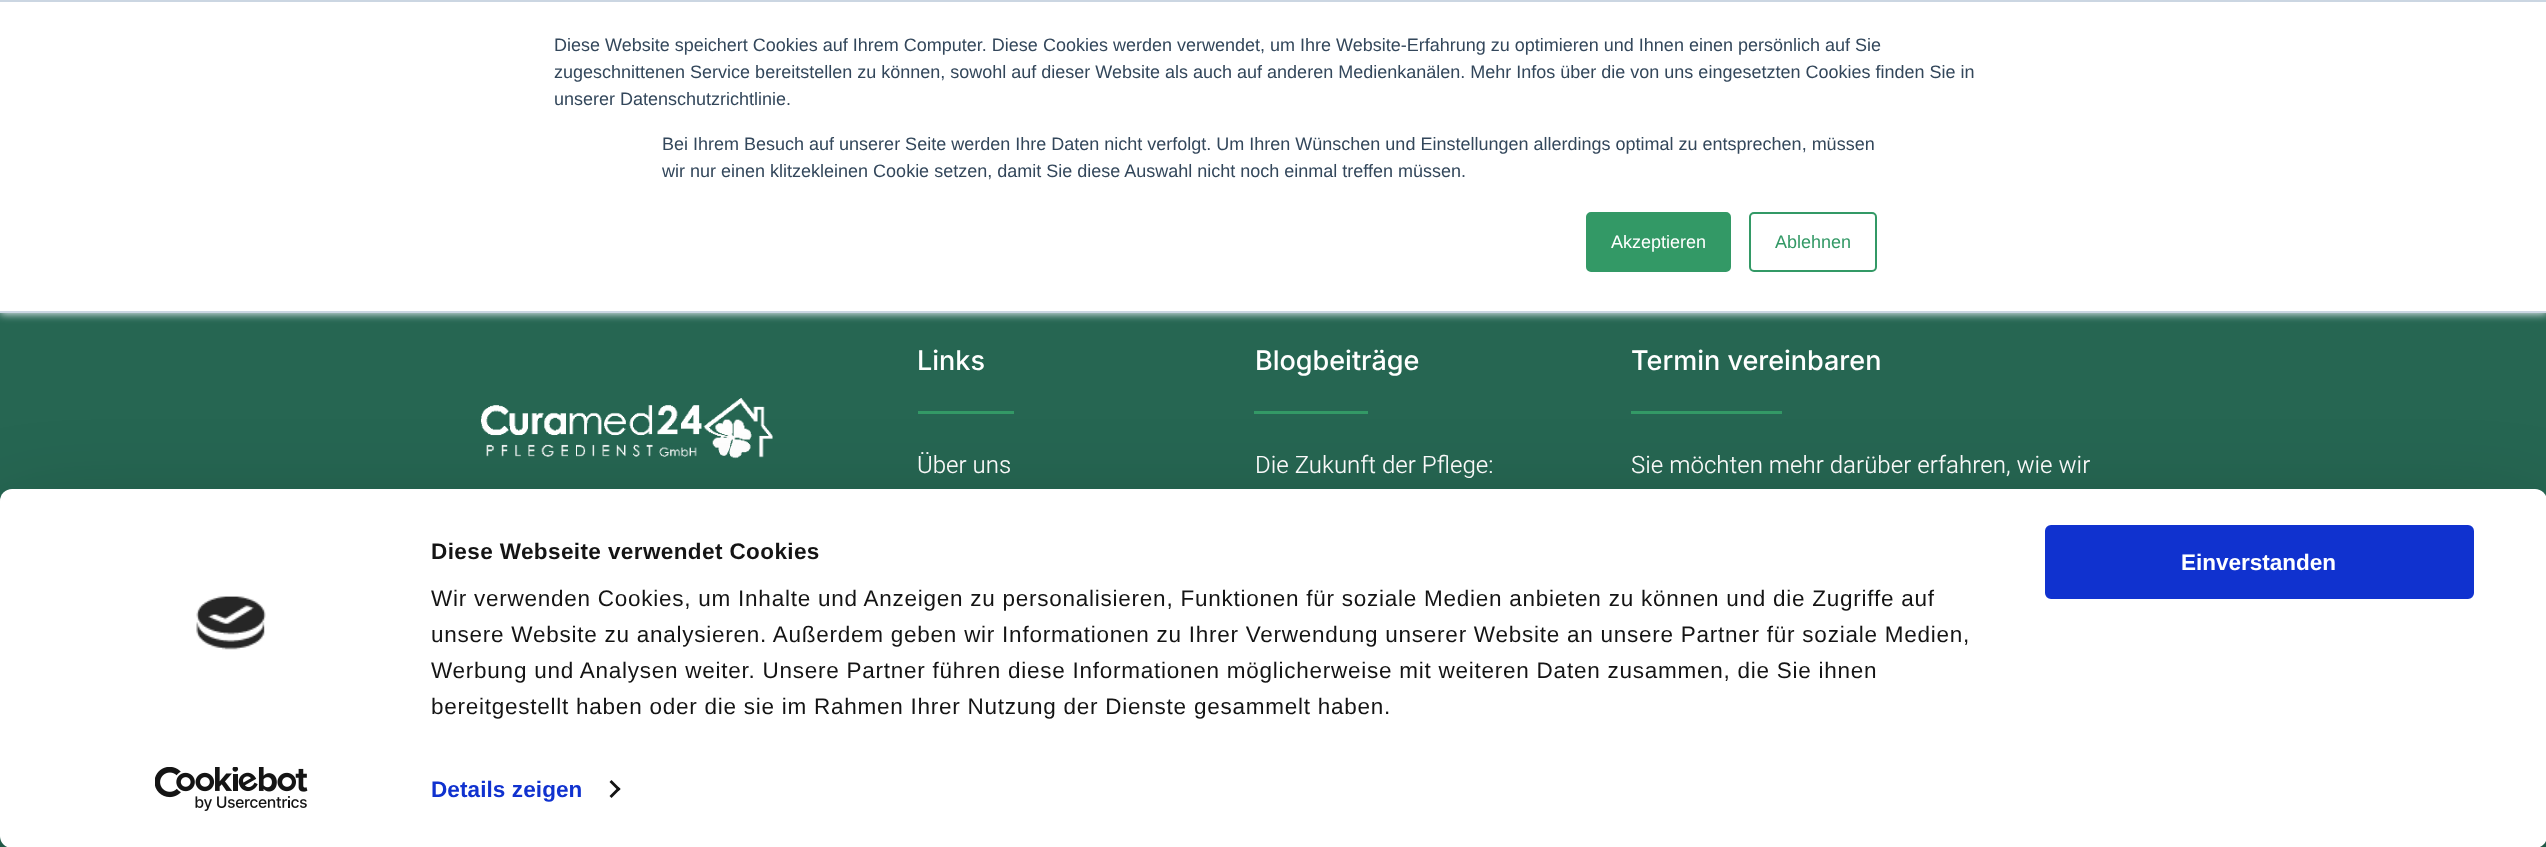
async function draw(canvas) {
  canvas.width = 2546
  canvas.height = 847
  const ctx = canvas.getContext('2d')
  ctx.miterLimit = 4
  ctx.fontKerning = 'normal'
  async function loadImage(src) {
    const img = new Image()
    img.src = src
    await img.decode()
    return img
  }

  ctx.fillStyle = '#266652'
  ctx.fillRect(0, 0, 2546, 847)
  ctx.fillStyle = '#eaf0f6'
  ctx.filter = 'blur(4px)'
  ctx.beginPath()
  ctx.rect(0, 2, 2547, 312)
  ctx.fill()
  ctx.filter = 'none'
  ctx.fillStyle = '#fff'
  ctx.fillRect(0, 2, 2546, 309)
  ctx.fillStyle = '#cbd6e2'
  ctx.fillRect(0, 0, 2546, 2)
  ctx.fillRect(0, 311, 2546, 2)
  ctx.font = '18px Liberation Sans'
  ctx.fillStyle = '#33475b'
  ctx.fillText('Diese Website speichert Cookies auf Ihrem Computer. Diese Cookies werden verwendet, um Ihre Website-Erfahrung zu optimieren und Ihnen einen persönlich auf Sie', 554, 51)
  ctx.fillText('zugeschnittenen Service bereitstellen zu können, sowohl auf dieser Website als auch auf anderen Medienkanälen. Mehr Infos über die von uns eingesetzten Cookies finden Sie in', 554, 78)
  ctx.fillText('unserer Datenschutzrichtlinie.', 554, 105)
  ctx.fillText('Bei Ihrem Besuch auf unserer Seite werden Ihre Daten nicht verfolgt. Um Ihren Wünschen und Einstellungen allerdings optimal zu entsprechen, müssen', 662, 150)
  ctx.fillText('wir nur einen klitzekleinen Cookie setzen, damit Sie diese Auswahl nicht noch einmal treffen müssen.', 662, 177)
  ctx.fillStyle = '#396'
  ctx.beginPath()
  ctx.roundRect(1587, 213, 143, 58, 4)
  ctx.fill()
  ctx.strokeStyle = '#396'
  ctx.lineWidth = 2
  ctx.stroke()
  ctx.fillStyle = '#fff'
  ctx.fillText('Akzeptieren', 1611, 248)
  ctx.beginPath()
  ctx.roundRect(1750, 213, 126, 58, 4)
  ctx.stroke()
  ctx.fillStyle = '#396'
  ctx.fillText('Ablehnen', 1775, 248)
  ctx.drawImage(await loadImage('image0.png'), 481, 398, 292, 61)
  ctx.font = '500 27px Inter'
  ctx.fillStyle = '#fff'
  ctx.fillText('Links', 917, 370)
  ctx.fillStyle = '#396'
  ctx.fillRect(918, 411, 96, 3)
  ctx.font = '300 24px Heebo'
  ctx.fillStyle = '#fff'
  ctx.fillText('Über uns', 917, 473)
  ctx.font = '500 27px Inter'
  ctx.fillText('Blogbeiträge', 1255, 370)
  ctx.fillStyle = '#396'
  ctx.fillRect(1254, 411, 114, 3)
  ctx.font = '300 24px Heebo'
  ctx.fillStyle = '#fff'
  ctx.fillText('Die Zukunft der Pflege:', 1255, 473)
  ctx.font = '500 27px Inter'
  ctx.fillText('Termin vereinbaren', 1631, 370)
  ctx.fillStyle = '#396'
  ctx.fillRect(1631, 411, 151, 3)
  ctx.font = '300 24px Heebo'
  ctx.fillStyle = '#fff'
  ctx.fillText('Sie möchten mehr darüber erfahren, wie wir', 1631, 473)
  ctx.fillStyle = '#0000004d'
  ctx.filter = 'blur(52.5px)'
  ctx.beginPath()
  ctx.roundRect(0, 534, 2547, 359, 12)
  ctx.fill()
  ctx.filter = 'none'
  ctx.fillStyle = '#fff'
  ctx.beginPath()
  ctx.roundRect(0, 489, 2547, 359, 12)
  ctx.fill()
  ctx.letterSpacing = '0.4px'
  ctx.font = 'bold 22.5px Liberation Sans'
  ctx.fillStyle = '#141414'
  ctx.fillText('Diese Webseite verwendet Cookies', 431, 559)
  ctx.letterSpacing = '0.75px'
  ctx.font = '22.5px Liberation Sans'
  ctx.fillText('Wir verwenden Cookies, um Inhalte und Anzeigen zu personalisieren, Funktionen für soziale Medien anbieten zu können und die Zugriffe auf', 431, 606)
  ctx.fillText('unsere Website zu analysieren. Außerdem geben wir Informationen zu Ihrer Verwendung unserer Website an unsere Partner für soziale Medien,', 431, 642)
  ctx.fillText('Werbung und Analysen weiter. Unsere Partner führen diese Informationen möglicherweise mit weiteren Daten zusammen, die Sie ihnen', 431, 678)
  ctx.fillText('bereitgestellt haben oder die sie im Rahmen Ihrer Nutzung der Dienste gesammelt haben.', 431, 714)
  ctx.letterSpacing = '0.1px'
  ctx.font = 'bold 22.5px Liberation Sans'
  ctx.fillStyle = '#1032cf'
  ctx.fillText('Details zeigen', 431, 797)
  ctx.fillStyle = '#141414'
  ctx.beginPath()
  ctx.moveTo(611.5, 780)
  ctx.lineTo(620.5, 789)
  ctx.lineTo(618.5, 791)
  ctx.lineTo(609.5, 782)
  ctx.closePath()
  ctx.fill()
  ctx.beginPath()
  ctx.moveTo(618.5, 787)
  ctx.lineTo(620.5, 789)
  ctx.lineTo(611.5, 798)
  ctx.lineTo(609.5, 796)
  ctx.closePath()
  ctx.fill()
  ctx.fillStyle = '#1032cf'
  ctx.beginPath()
  ctx.roundRect(2046.5, 526.5, 426, 71, 4.5)
  ctx.fill()
  ctx.strokeStyle = '#1032cf'
  ctx.lineWidth = 3
  ctx.stroke()
  ctx.letterSpacing = '0px'
  ctx.fillStyle = '#fff'
  ctx.fillText('Einverstanden', 2181, 570)
  ctx.drawImage(await loadImage('image1.png'), 196, 596, 70, 54)
  ctx.drawImage(await loadImage('image2.png'), 155, 767, 153, 44)
}

draw(document.querySelector('canvas'))
